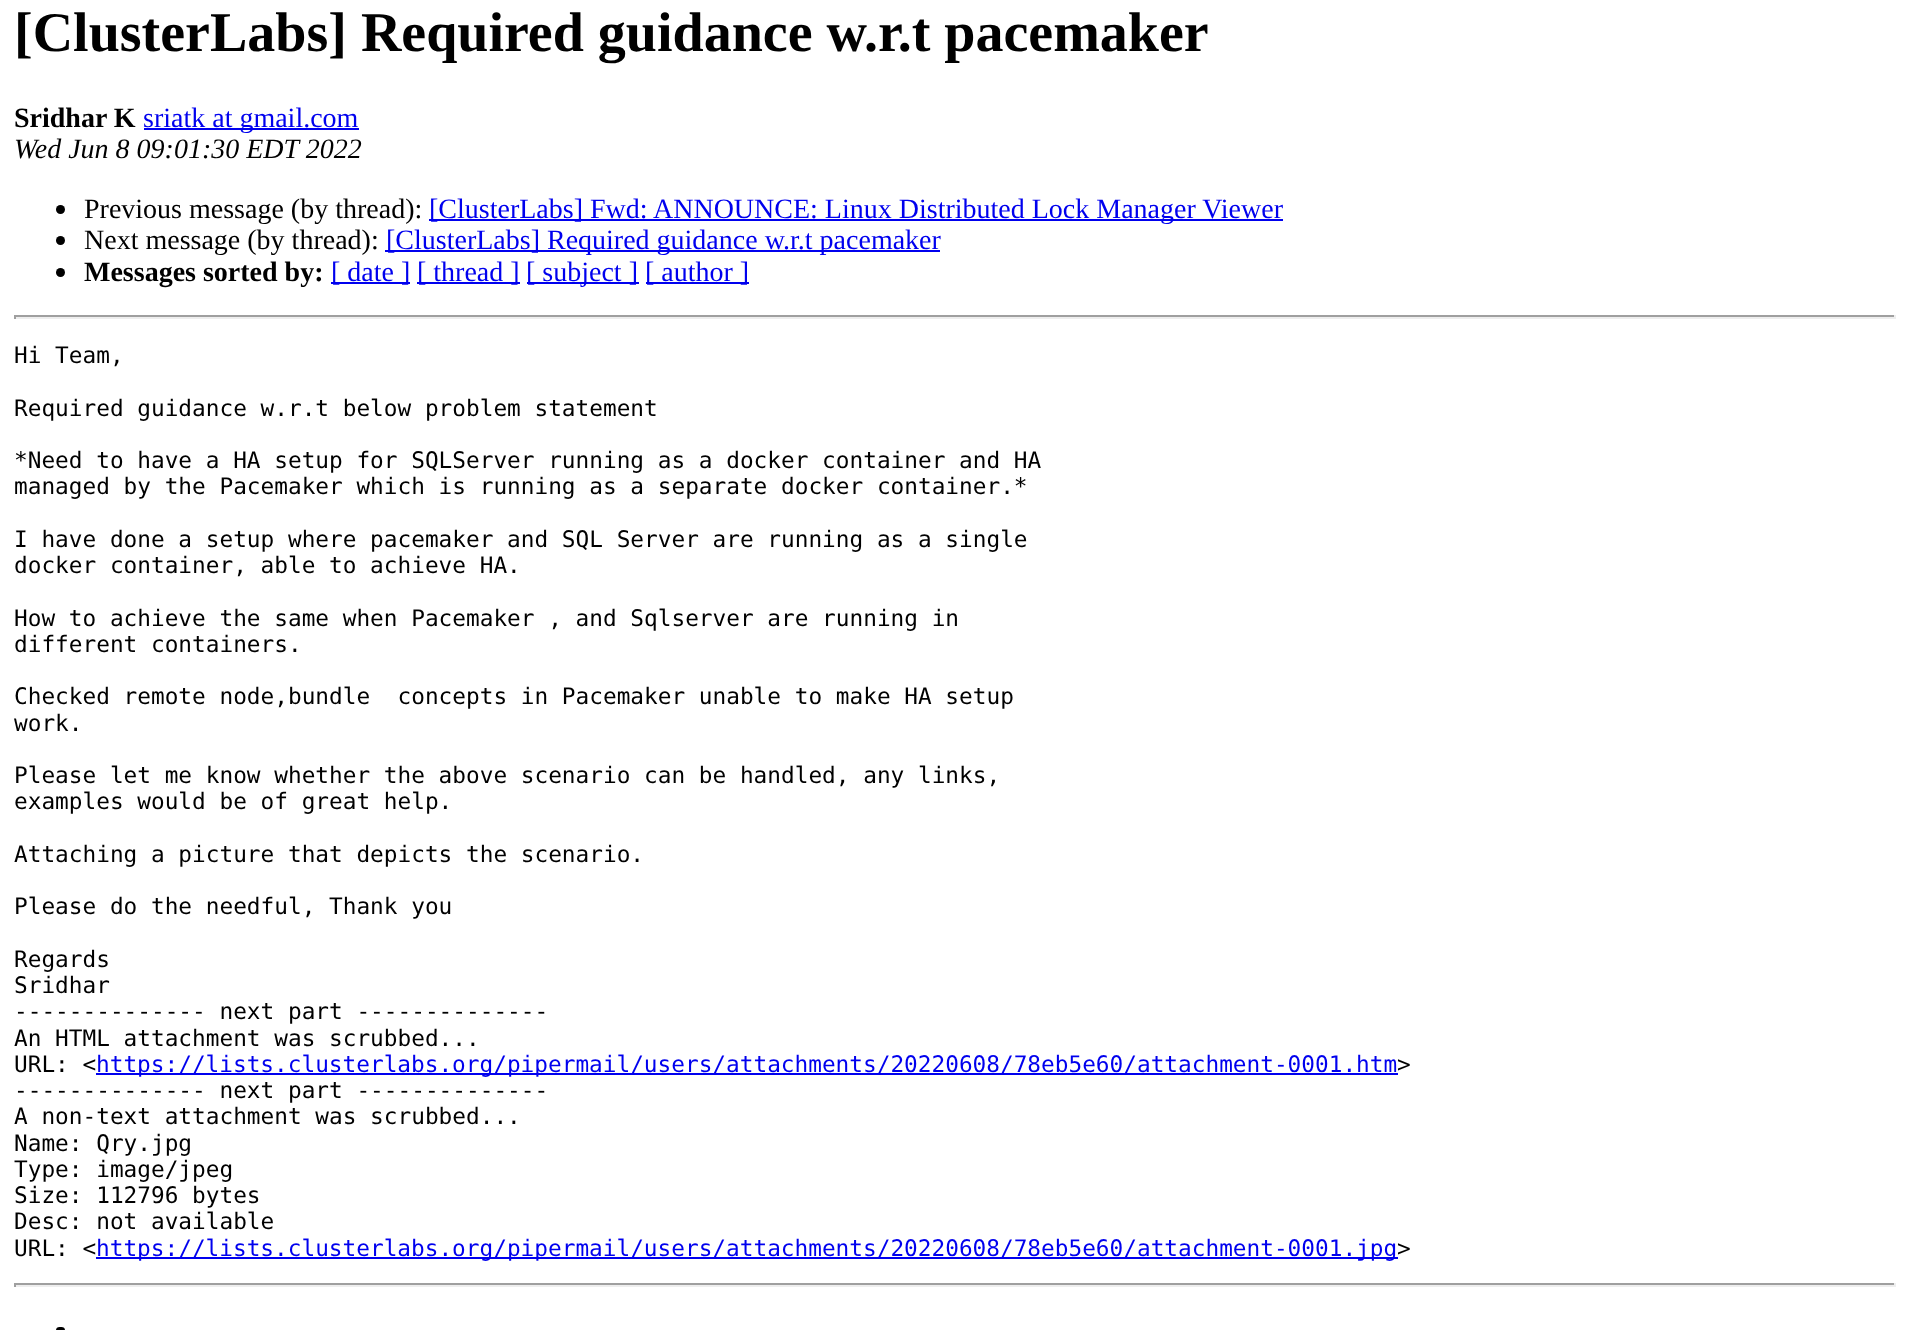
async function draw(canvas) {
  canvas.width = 1909
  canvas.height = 1330
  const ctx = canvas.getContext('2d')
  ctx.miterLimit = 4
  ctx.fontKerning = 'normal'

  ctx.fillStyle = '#fff'
  ctx.fillRect(0, 0, 1909, 1330)
  ctx.font = 'bold 56px Liberation Serif'
  ctx.fillStyle = '#000'
  ctx.fillText('[ClusterLabs] Required guidance w.r.t pacemaker', 14, 51)
  ctx.font = 'bold 28px Liberation Serif'
  ctx.fillText('Sridhar K', 14, 127)
  ctx.fillStyle = '#00e'
  ctx.fillRect(144, 128, 215, 2)
  ctx.font = '28px Liberation Serif'
  ctx.fillText('sriatk at gmail.com', 143, 127)
  ctx.font = 'italic 28px Liberation Serif'
  ctx.fillStyle = '#000'
  ctx.fillText('Wed Jun 8 09:01:30 EDT 2022', 14, 158)
  ctx.beginPath()
  ctx.arc(60.5, 209.5, 4.5, 0, 2 * Math.PI)
  ctx.fill()
  ctx.font = '28px Liberation Serif'
  ctx.fillText('Previous message (by thread):', 84, 218)
  ctx.fillStyle = '#00e'
  ctx.fillRect(429, 219, 854, 2)
  ctx.fillText('[ClusterLabs] Fwd: ANNOUNCE: Linux Distributed Lock Manager Viewer', 429, 218)
  ctx.fillStyle = '#000'
  ctx.beginPath()
  ctx.arc(60.5, 240.5, 4.5, 0, 2 * Math.PI)
  ctx.fill()
  ctx.fillText('Next message (by thread):', 84, 249)
  ctx.fillStyle = '#00e'
  ctx.fillRect(385, 250, 555, 2)
  ctx.fillText('[ClusterLabs] Required guidance w.r.t pacemaker', 386, 249)
  ctx.fillStyle = '#000'
  ctx.beginPath()
  ctx.arc(60.5, 272.5, 4.5, 0, 2 * Math.PI)
  ctx.fill()
  ctx.font = 'bold 28px Liberation Serif'
  ctx.fillText('Messages sorted by:', 84, 281)
  ctx.fillStyle = '#00e'
  ctx.fillRect(331, 282, 79, 2)
  ctx.font = '28px Liberation Serif'
  ctx.fillText('[ date ]', 331, 281)
  ctx.fillRect(417, 282, 103, 2)
  ctx.fillText('[ thread ]', 417, 281)
  ctx.fillRect(527, 282, 112, 2)
  ctx.fillText('[ subject ]', 526, 281)
  ctx.fillRect(646, 282, 103, 2)
  ctx.fillText('[ author ]', 645, 281)
  ctx.fillStyle = '#9f9f9f'
  ctx.fillRect(14, 315, 1881, 2)
  ctx.fillStyle = '#eee'
  ctx.fillRect(1894, 315, 2, 4)
  ctx.fillRect(14, 317, 1881, 2)
  ctx.fillStyle = '#9f9f9f'
  ctx.fillRect(14, 315, 2, 4)
  ctx.font = '22.75px DejaVu Sans Mono'
  ctx.fillStyle = '#000'
  ctx.fillText('Hi Team,', 14, 363)
  ctx.fillText('Required guidance w.r.t below problem statement', 14, 416)
  ctx.fillText('*Need to have a HA setup for SQLServer running as a docker container and HA', 14, 468)
  ctx.fillText('managed by the Pacemaker which is running as a separate docker container.*', 14, 494)
  ctx.fillText('I have done a setup where pacemaker and SQL Server are running as a single', 14, 547)
  ctx.fillText('docker container, able to achieve HA.', 14, 573)
  ctx.fillText('How to achieve the same when Pacemaker , and Sqlserver are running in', 14, 626)
  ctx.fillText('different containers.', 14, 652)
  ctx.fillText('Checked remote node,bundle  concepts in Pacemaker unable to make HA setup', 14, 704)
  ctx.fillText('work.', 14, 731)
  ctx.fillText('Please let me know whether the above scenario can be handled, any links,', 14, 783)
  ctx.fillText('examples would be of great help.', 14, 809)
  ctx.fillText('Attaching a picture that depicts the scenario.', 14, 862)
  ctx.fillText('Please do the needful, Thank you', 14, 914)
  ctx.fillText('Regards', 14, 967)
  ctx.fillText('Sridhar', 14, 993)
  ctx.fillText('-------------- next part --------------', 14, 1019)
  ctx.fillText('An HTML attachment was scrubbed...', 14, 1046)
  ctx.fillText('URL: <', 14, 1072)
  ctx.fillStyle = '#00e'
  ctx.fillRect(96, 1073, 1302, 2)
  ctx.fillText('https://lists.clusterlabs.org/pipermail/users/attachments/20220608/78eb5e60/attachment-0001.htm', 96, 1072)
  ctx.fillStyle = '#000'
  ctx.fillText('>', 1397, 1072)
  ctx.fillText('-------------- next part --------------', 14, 1098)
  ctx.fillText('A non-text attachment was scrubbed...', 14, 1124)
  ctx.fillText('Name: Qry.jpg', 14, 1151)
  ctx.fillText('Type: image/jpeg', 14, 1177)
  ctx.fillText('Size: 112796 bytes', 14, 1203)
  ctx.fillText('Desc: not available', 14, 1229)
  ctx.fillText('URL: <', 14, 1256)
  ctx.fillStyle = '#00e'
  ctx.fillRect(96, 1257, 1302, 2)
  ctx.fillText('https://lists.clusterlabs.org/pipermail/users/attachments/20220608/78eb5e60/attachment-0001.jpg', 96, 1256)
  ctx.fillStyle = '#000'
  ctx.fillText('>', 1397, 1256)
  ctx.fillStyle = '#9f9f9f'
  ctx.fillRect(14, 1283, 1881, 2)
  ctx.fillStyle = '#eee'
  ctx.fillRect(1894, 1283, 2, 4)
  ctx.fillRect(14, 1285, 1881, 2)
  ctx.fillStyle = '#9f9f9f'
  ctx.fillRect(14, 1283, 2, 4)
  ctx.fillStyle = '#000'
  ctx.beginPath()
  ctx.roundRect(56, 1327, 9, 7, 4)
  ctx.fill()
}

draw(document.querySelector('canvas'))
